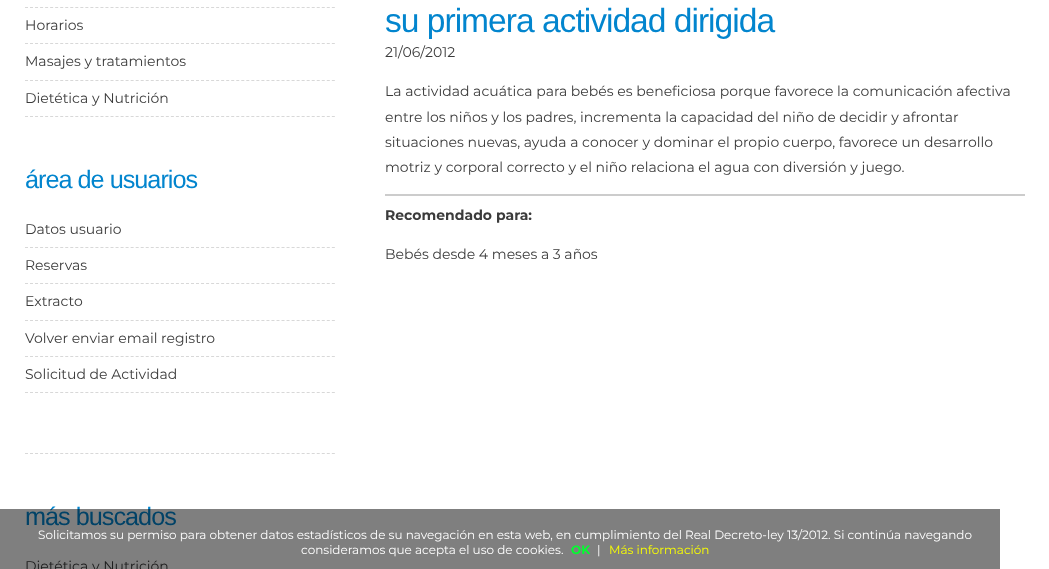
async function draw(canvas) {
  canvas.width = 1049
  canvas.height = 569
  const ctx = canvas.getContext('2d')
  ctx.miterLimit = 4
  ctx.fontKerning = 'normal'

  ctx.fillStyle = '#fff'
  ctx.fillRect(0, 0, 1049, 569)
  ctx.beginPath()
  ctx.moveTo(25, 7.5)
  ctx.lineTo(335, 7.5)
  ctx.strokeStyle = '#d8d8d8'
  ctx.setLineDash([3, 2.03])
  ctx.stroke()
  ctx.beginPath()
  ctx.moveTo(25, 43.5)
  ctx.lineTo(335, 43.5)
  ctx.stroke()
  ctx.font = '14px Montserrat'
  ctx.fillStyle = '#3b3b3b'
  ctx.fillText('Horarios', 25, 30)
  ctx.beginPath()
  ctx.moveTo(25, 80.5)
  ctx.lineTo(335, 80.5)
  ctx.stroke()
  ctx.fillText('Masajes y tratamientos', 25, 66)
  ctx.beginPath()
  ctx.moveTo(25, 116.5)
  ctx.lineTo(335, 116.5)
  ctx.stroke()
  ctx.fillText('Dietética y Nutrición', 25, 103)
  ctx.letterSpacing = '-1px'
  ctx.font = '25.25px Liberation Sans'
  ctx.fillStyle = '#0285ce'
  ctx.fillText('área de usuarios', 25, 188)
  ctx.beginPath()
  ctx.moveTo(25, 247.5)
  ctx.lineTo(335, 247.5)
  ctx.stroke()
  ctx.letterSpacing = '0px'
  ctx.font = '14px Montserrat'
  ctx.fillStyle = '#3b3b3b'
  ctx.fillText('Datos usuario', 25, 234)
  ctx.beginPath()
  ctx.moveTo(25, 283.5)
  ctx.lineTo(335, 283.5)
  ctx.stroke()
  ctx.fillText('Reservas', 25, 270)
  ctx.beginPath()
  ctx.moveTo(25, 320.5)
  ctx.lineTo(335, 320.5)
  ctx.stroke()
  ctx.fillText('Extracto', 25, 306)
  ctx.beginPath()
  ctx.moveTo(25, 356.5)
  ctx.lineTo(335, 356.5)
  ctx.stroke()
  ctx.fillText('Volver enviar email registro', 25, 343)
  ctx.beginPath()
  ctx.moveTo(25, 392.5)
  ctx.lineTo(335, 392.5)
  ctx.stroke()
  ctx.fillText('Solicitud de Actividad', 25, 379)
  ctx.beginPath()
  ctx.moveTo(25, 453.5)
  ctx.lineTo(335, 453.5)
  ctx.stroke()
  ctx.letterSpacing = '-1px'
  ctx.font = '25.25px Liberation Sans'
  ctx.fillStyle = '#0285ce'
  ctx.fillText('más buscados', 25, 525)
  ctx.letterSpacing = '0px'
  ctx.font = '14px Montserrat'
  ctx.fillStyle = '#3b3b3b'
  ctx.fillText('Dietética y Nutrición', 25, 571)
  ctx.letterSpacing = '-1px'
  ctx.font = '33.6px Liberation Sans'
  ctx.fillStyle = '#0285ce'
  ctx.fillText('su primera actividad dirigida', 385, 32)
  ctx.letterSpacing = '0px'
  ctx.font = '14px Montserrat'
  ctx.fillStyle = '#3b3b3b'
  ctx.fillText('21/06/2012', 385, 57)
  ctx.fillText('La actividad acuática para bebés es beneficiosa porque favorece la comunicación afectiva', 385, 96)
  ctx.fillText('entre los niños y los padres, incrementa la capacidad del niño de decidir y afrontar', 385, 122)
  ctx.fillText('situaciones nuevas, ayuda a conocer y dominar el propio cuerpo, favorece un desarrollo', 385, 147)
  ctx.fillText('motriz y corporal correcto y el niño relaciona el agua con diversión y juego.', 385, 172)
  ctx.fillStyle = '#ccc'
  ctx.fillRect(385, 194, 640, 2)
  ctx.font = 'bold 14px Montserrat'
  ctx.fillStyle = '#3b3b3b'
  ctx.fillText('Recomendado para:', 385, 220)
  ctx.font = '14px Montserrat'
  ctx.fillText('Bebés desde 4 meses a 3 años', 385, 259)
  ctx.fillStyle = '#00000080'
  ctx.fillRect(0, 509, 1000, 60)
  ctx.font = '12px Montserrat'
  ctx.fillStyle = '#fff'
  ctx.fillText('Solicitamos su permiso para obtener datos estadísticos de su navegación en esta web, en cumplimiento del Real Decreto-ley 13/2012. Si continúa navegando', 38, 539)
  ctx.fillText('consideramos que acepta el uso de cookies.', 301, 554)
  ctx.font = 'bold 12px Montserrat'
  ctx.fillStyle = '#00ff2e'
  ctx.fillText('OK', 571, 554)
  ctx.font = '12px Montserrat'
  ctx.fillStyle = '#fff'
  ctx.fillText('|', 597, 554)
  ctx.fillStyle = '#faff00'
  ctx.fillText('Más información', 609, 554)
}

draw(document.querySelector('canvas'))
